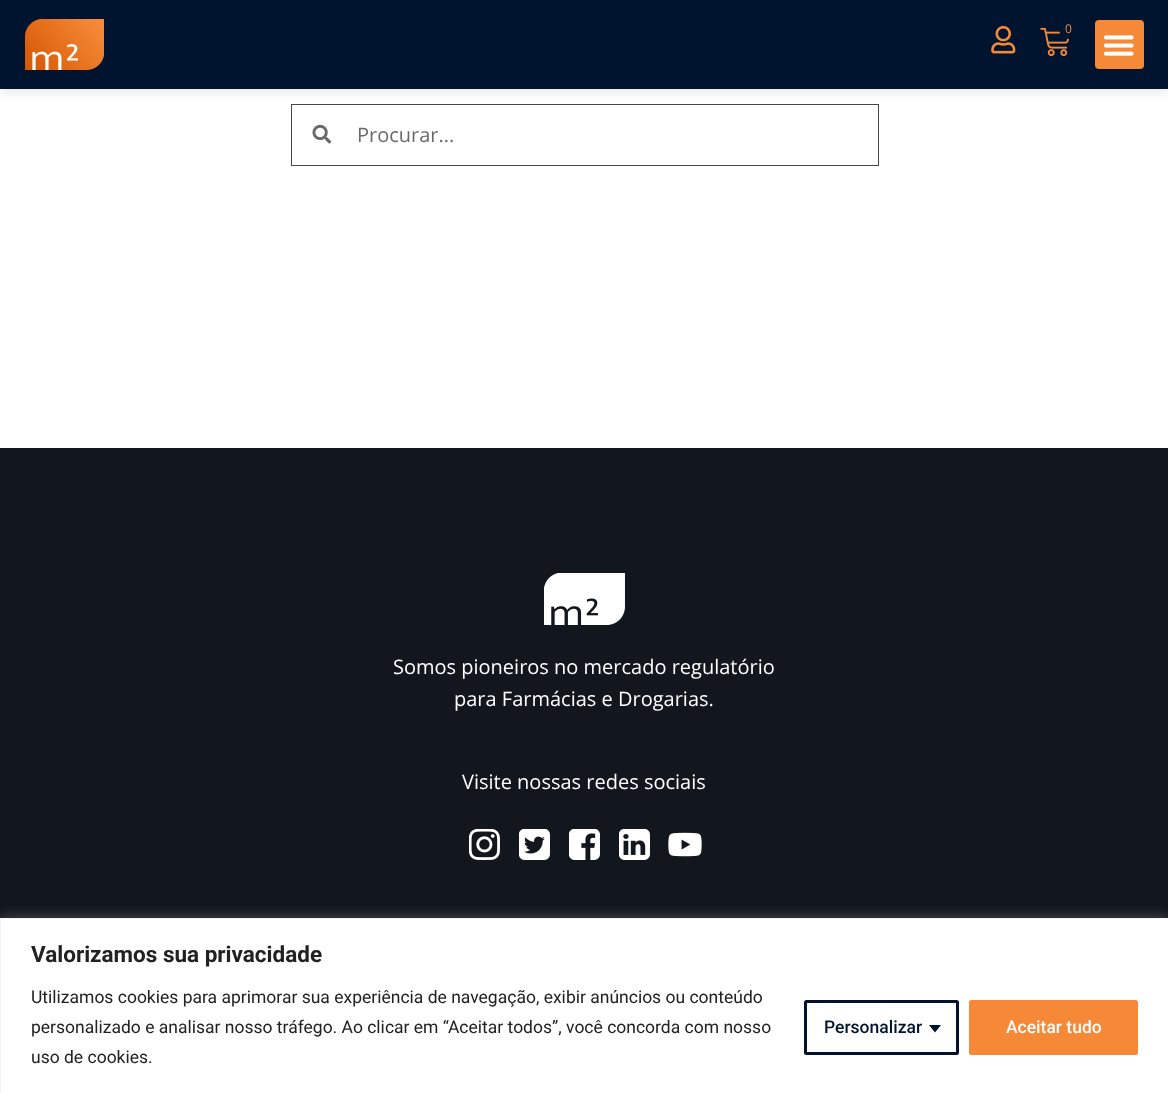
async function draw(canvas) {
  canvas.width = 1168
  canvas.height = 1093
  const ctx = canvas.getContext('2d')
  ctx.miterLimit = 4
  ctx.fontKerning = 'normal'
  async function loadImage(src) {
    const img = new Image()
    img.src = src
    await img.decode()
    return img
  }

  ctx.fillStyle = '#fff'
  ctx.fillRect(0, 0, 1168, 1093)
  ctx.strokeStyle = '#474747'
  ctx.strokeRect(291.5, 104.5, 587, 61)
  ctx.fillStyle = '#00000014'
  ctx.filter = 'blur(4px)'
  ctx.beginPath()
  ctx.rect(0, 4, 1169, 89)
  ctx.fill()
  ctx.filter = 'none'
  ctx.fillStyle = '#00142f'
  ctx.fillRect(0, 0, 1168, 89)
  ctx.drawImage(await loadImage('image0.png'), 25, 19, 79, 51)
  ctx.drawImage(await loadImage('image1.png'), 991, 25, 25, 29)
  ctx.drawImage(await loadImage('image2.png'), 1040, 27, 29, 30)
  ctx.beginPath()
  ctx.arc(1069, 29, 10, 0, 2 * Math.PI)
  ctx.fill()
  ctx.font = '12px Open Sans'
  ctx.fillStyle = '#f58938'
  ctx.fillText('0', 1065, 33)
  ctx.beginPath()
  ctx.roundRect(1095, 20, 49, 49, 4)
  ctx.fill()
  ctx.drawImage(await loadImage('image3.png'), 1103, 35, 31, 21)
  ctx.drawImage(await loadImage('image4.png'), 312, 124, 20, 20)
  ctx.font = '20px Open Sans'
  ctx.fillStyle = '#696969'
  ctx.fillText('Procurar...', 357, 142)
  ctx.fillStyle = '#12161d'
  ctx.fillRect(0, 448, 1168, 470)
  ctx.drawImage(await loadImage('image5.png'), 544, 573, 81, 52)
  ctx.fillStyle = '#fff'
  ctx.fillText('Somos pioneiros no mercado regulatório', 393, 674)
  ctx.fillText('para Farmácias e Drogarias.', 454, 706)
  ctx.fillText('Visite nossas redes sociais', 462, 789)
  ctx.drawImage(await loadImage('image6.png'), 469, 829, 31, 31)
  ctx.drawImage(await loadImage('image7.png'), 519, 829, 31, 31)
  ctx.drawImage(await loadImage('image8.png'), 569, 829, 31, 31)
  ctx.drawImage(await loadImage('image9.png'), 619, 829, 31, 31)
  ctx.drawImage(await loadImage('image10.png'), 668, 832, 34, 25)
  ctx.fillStyle = '#acabab4d'
  ctx.filter = 'blur(6px)'
  ctx.beginPath()
  ctx.rect(0, 916, 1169, 177)
  ctx.fill()
  ctx.filter = 'none'
  ctx.fillStyle = '#fff'
  ctx.beginPath()
  ctx.rect(0.5, 918.5, 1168, 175)
  ctx.fill()
  ctx.strokeStyle = '#f4f4f4'
  ctx.stroke()
  ctx.font = 'bold 22.5px Roboto'
  ctx.fillStyle = '#212121'
  ctx.fillText('Valorizamos sua privacidade', 31, 962)
  ctx.font = '17.5px Roboto'
  ctx.fillText('Utilizamos cookies para aprimorar sua experiência de navegação, exibir anúncios ou conteúdo', 31, 1003)
  ctx.fillText('personalizado e analisar nosso tráfego. Ao clicar em “Aceitar todos”, você concorda com nosso', 31, 1033)
  ctx.fillText('uso de cookies.', 31, 1063)
  ctx.beginPath()
  ctx.roundRect(805.5, 1001.5, 152, 52, 1)
  ctx.strokeStyle = '#00142f'
  ctx.lineWidth = 3
  ctx.stroke()
  ctx.font = '500 17.5px Roboto'
  ctx.fillStyle = '#00142f'
  ctx.fillText('Personalizar', 824, 1033)
  ctx.beginPath()
  ctx.moveTo(929, 1025)
  ctx.lineTo(941, 1025)
  ctx.lineTo(935, 1032.5)
  ctx.closePath()
  ctx.fill()
  ctx.fillStyle = '#f58938'
  ctx.beginPath()
  ctx.roundRect(970.5, 1001.5, 166, 52, 1)
  ctx.fill()
  ctx.strokeStyle = '#f58938'
  ctx.stroke()
  ctx.fillStyle = '#fff'
  ctx.fillText('Aceitar tudo', 1006, 1033)
}

draw(document.querySelector('canvas'))
